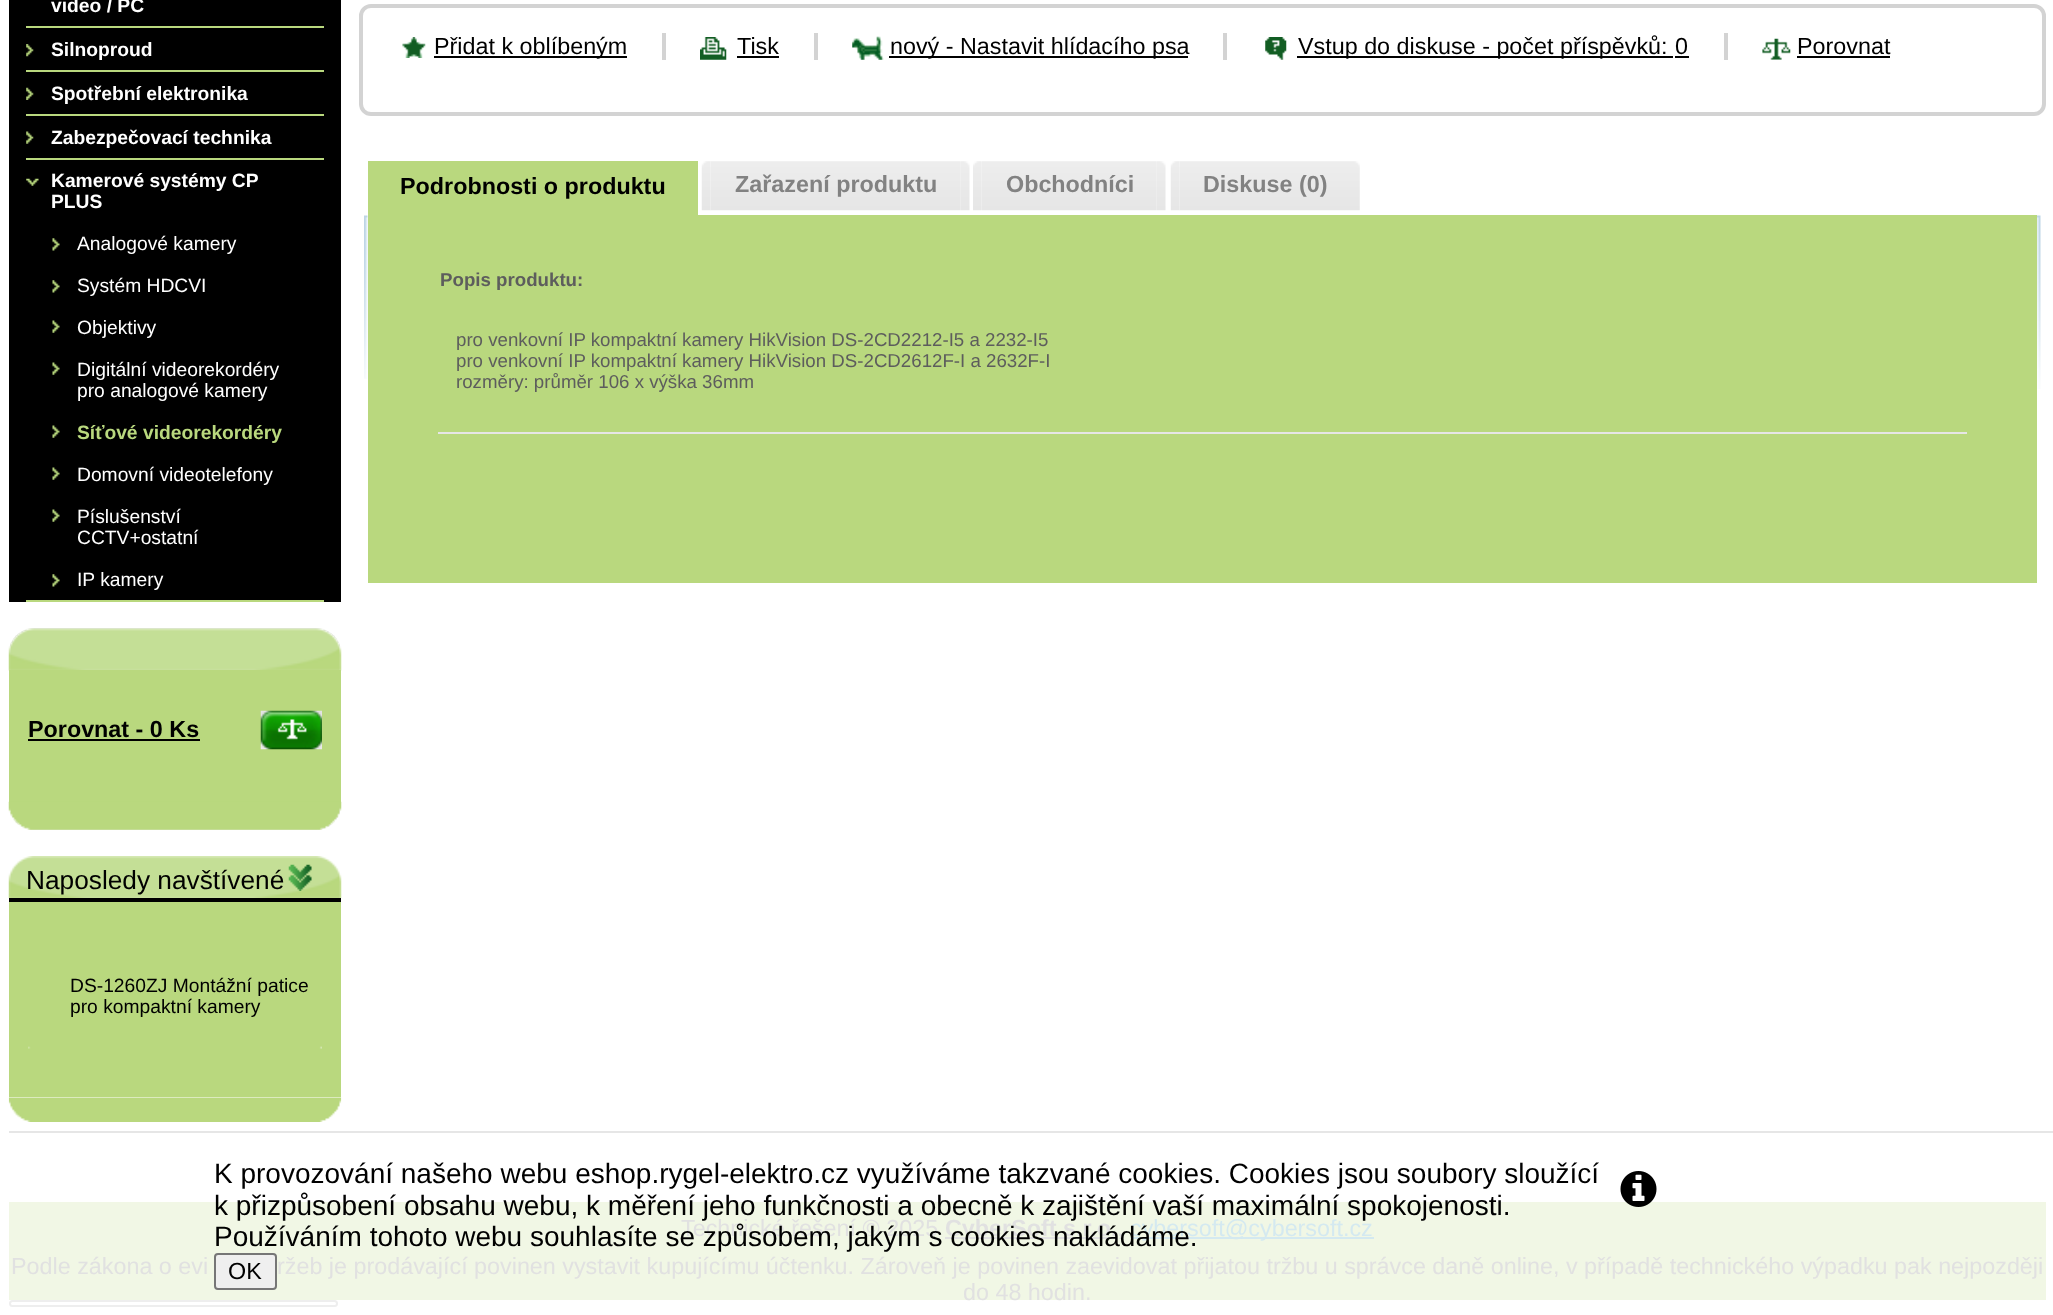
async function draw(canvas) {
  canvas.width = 2053
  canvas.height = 1315
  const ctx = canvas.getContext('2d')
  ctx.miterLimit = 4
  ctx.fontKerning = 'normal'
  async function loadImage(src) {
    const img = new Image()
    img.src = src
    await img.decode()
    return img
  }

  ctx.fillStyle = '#fff'
  ctx.fillRect(0, 0, 2053, 1315)
  ctx.fillStyle = '#000'
  ctx.fillRect(9, 0, 332, 602)
  ctx.fillStyle = '#b9d87e'
  ctx.fillRect(26, 26, 298, 2)
  ctx.font = 'bold 19.25px Liberation Sans'
  ctx.fillStyle = '#fff'
  ctx.fillText('video / PC', 51, 12)
  ctx.fillStyle = '#b9d87e'
  ctx.fillRect(26, 70, 298, 2)
  ctx.drawImage(await loadImage('image0.png'), 26, 44, 8, 13)
  ctx.fillStyle = '#fff'
  ctx.fillText('Silnoproud', 51, 56)
  ctx.fillStyle = '#b9d87e'
  ctx.fillRect(26, 114, 298, 2)
  ctx.drawImage(await loadImage('image1.png'), 26, 87, 8, 13)
  ctx.fillStyle = '#fff'
  ctx.fillText('Spotřební elektronika', 51, 100)
  ctx.fillStyle = '#b9d87e'
  ctx.fillRect(26, 158, 298, 2)
  ctx.drawImage(await loadImage('image2.png'), 26, 131, 8, 13)
  ctx.fillStyle = '#fff'
  ctx.fillText('Zabezpečovací technika', 51, 144)
  ctx.fillStyle = '#b9d87e'
  ctx.fillRect(26, 600, 298, 2)
  ctx.drawImage(await loadImage('image3.png'), 26, 178, 13, 8)
  ctx.fillStyle = '#fff'
  ctx.fillText('Kamerové systémy CP', 51, 187)
  ctx.fillText('PLUS', 51, 208)
  ctx.drawImage(await loadImage('image4.png'), 52, 238, 8, 13)
  ctx.font = '19.25px Liberation Sans'
  ctx.fillText('Analogové kamery', 77, 250)
  ctx.drawImage(await loadImage('image4.png'), 52, 280, 8, 13)
  ctx.fillText('Systém HDCVI', 77, 292)
  ctx.drawImage(await loadImage('image5.png'), 52, 320, 8, 13)
  ctx.fillText('Objektivy', 77, 334)
  ctx.drawImage(await loadImage('image5.png'), 52, 362, 8, 13)
  ctx.fillText('Digitální videorekordéry', 77, 376)
  ctx.fillText('pro analogové kamery', 77, 397)
  ctx.drawImage(await loadImage('image5.png'), 52, 425, 8, 13)
  ctx.font = 'bold 19.25px Liberation Sans'
  ctx.fillStyle = '#b9d87e'
  ctx.fillText('Síťové videorekordéry', 77, 439)
  ctx.drawImage(await loadImage('image5.png'), 52, 467, 8, 13)
  ctx.font = '19.25px Liberation Sans'
  ctx.fillStyle = '#fff'
  ctx.fillText('Domovní videotelefony', 77, 481)
  ctx.drawImage(await loadImage('image6.png'), 52, 509, 8, 13)
  ctx.fillText('Píslušenství', 77, 523)
  ctx.fillText('CCTV+ostatní', 77, 544)
  ctx.drawImage(await loadImage('image4.png'), 52, 574, 8, 13)
  ctx.fillText('IP kamery', 77, 586)
  ctx.fillStyle = '#eaeaea'
  ctx.beginPath()
  ctx.roundRect(9, 628, 332, 202, 25)
  ctx.fill()
  ctx.drawImage(await loadImage('image7.png'), 9, 628, 332, 19)
  ctx.drawImage(await loadImage('image8.png'), 8, 628, 334, 43)
  ctx.fillStyle = '#b9d87e'
  ctx.fillRect(9, 670, 332, 132)
  ctx.font = 'bold 23.33px Liberation Sans'
  ctx.fillStyle = '#000'
  ctx.fillText('Porovnat - 0 Ks', 28, 737)
  ctx.fillRect(28, 739, 172, 2)
  ctx.drawImage(await loadImage('image9.png'), 260, 710, 62, 40)
  ctx.drawImage(await loadImage('image10.png'), 8, 801, 334, 29)
  ctx.drawImage(await loadImage('image11.png'), 8, 856, 334, 42)
  ctx.drawImage(await loadImage('image12.png'), 288, 864, 24, 27)
  ctx.fillRect(9, 898, 332, 4)
  ctx.font = '26.25px Liberation Sans'
  ctx.fillText('Naposledy navštívené', 26, 889)
  ctx.fillStyle = '#b9d87e'
  ctx.fillRect(9, 902, 332, 195)
  ctx.font = '19.25px Liberation Sans'
  ctx.fillStyle = '#000'
  ctx.fillText('DS-1260ZJ Montážní patice', 70, 992)
  ctx.fillText('pro kompaktní kamery', 70, 1013)
  ctx.drawImage(await loadImage('image13.png'), 28, 1046, 294, 3)
  ctx.drawImage(await loadImage('image14.png'), 8, 1097, 334, 25)
  ctx.beginPath()
  ctx.roundRect(361, 6, 1683, 108, 10)
  ctx.strokeStyle = '#d3d3d3'
  ctx.lineWidth = 4
  ctx.stroke()
  ctx.drawImage(await loadImage('image15.png'), 402, 37, 24, 21)
  ctx.fillRect(434, 56, 193, 2)
  ctx.font = '23.33px Liberation Sans'
  ctx.fillText('Přidat k oblíbeným', 434, 54)
  ctx.fillStyle = '#d3d3d3'
  ctx.fillRect(662, 33, 4, 27)
  ctx.drawImage(await loadImage('image16.png'), 700, 37, 27, 23)
  ctx.fillStyle = '#000'
  ctx.fillText('Tisk', 737, 54)
  ctx.fillRect(737, 56, 42, 2)
  ctx.fillStyle = '#d3d3d3'
  ctx.fillRect(814, 33, 4, 27)
  ctx.drawImage(await loadImage('image17.png'), 852, 36, 32, 24)
  ctx.fillStyle = '#000'
  ctx.fillRect(889, 56, 49, 2)
  ctx.fillText('nový -', 890, 54)
  ctx.fillRect(938, 56, 250, 2)
  ctx.fillText('Nastavit hlídacího psa', 960, 54)
  ctx.fillStyle = '#d3d3d3'
  ctx.fillRect(1223, 33, 4, 27)
  ctx.drawImage(await loadImage('image18.png'), 1265, 37, 22, 23)
  ctx.fillStyle = '#000'
  ctx.fillRect(1297, 56, 376, 2)
  ctx.fillText('Vstup do diskuse - počet příspěvků:', 1298, 54)
  ctx.fillText('0', 1675, 54)
  ctx.fillRect(1675, 56, 14, 2)
  ctx.fillStyle = '#d3d3d3'
  ctx.fillRect(1724, 33, 4, 27)
  ctx.drawImage(await loadImage('image19.png'), 1762, 38, 29, 22)
  ctx.fillStyle = '#000'
  ctx.fillText('Porovnat', 1797, 54)
  ctx.fillRect(1797, 56, 93, 2)
  ctx.fillStyle = '#b9d87e'
  ctx.fillRect(368, 161, 330, 54)
  ctx.font = 'bold 23.33px Liberation Sans'
  ctx.fillStyle = '#000'
  ctx.fillText('Podrobnosti o produktu', 400, 194)
  ctx.drawImage(await loadImage('image20.png'), 701, 161, 10, 50)
  ctx.drawImage(await loadImage('image21.png'), 960, 161, 10, 50)
  ctx.drawImage(await loadImage('image22.png'), 710, 161, 251, 50)
  ctx.fillStyle = '#828282'
  ctx.fillText('Zařazení produktu', 735, 192)
  ctx.drawImage(await loadImage('image23.png'), 973, 161, 9, 50)
  ctx.drawImage(await loadImage('image21.png'), 1156, 161, 10, 50)
  ctx.drawImage(await loadImage('image24.png'), 982, 161, 175, 50)
  ctx.fillText('Obchodníci', 1006, 192)
  ctx.drawImage(await loadImage('image25.png'), 1170, 161, 10, 50)
  ctx.drawImage(await loadImage('image26.png'), 1351, 161, 9, 50)
  ctx.drawImage(await loadImage('image27.png'), 1179, 161, 172, 50)
  ctx.fillText('Diskuse (0)', 1203, 192)
  ctx.drawImage(await loadImage('image28.png'), 364, 215, 4, 164)
  ctx.drawImage(await loadImage('image29.png'), 2037, 215, 4, 174)
  ctx.fillStyle = '#b9d87e'
  ctx.fillRect(368, 215, 1669, 368)
  ctx.fillStyle = '#e6e6e6'
  ctx.fillRect(438, 432, 1529, 2)
  ctx.font = 'bold 18.7px Liberation Sans'
  ctx.fillStyle = '#5d5d5d'
  ctx.fillText('Popis produktu:', 440, 286)
  ctx.font = '18.7px Liberation Sans'
  ctx.fillText('pro venkovní IP kompaktní kamery HikVision DS-2CD2212-I5 a 2232-I5', 456, 346)
  ctx.fillText('pro venkovní IP kompaktní kamery HikVision DS-2CD2612F-I a 2632F-I', 456, 367)
  ctx.fillText('rozměry: průměr 106 x výška 36mm', 456, 388)
  ctx.fillStyle = '#e6e6e6'
  ctx.fillRect(9, 1131, 2044, 2)
  ctx.font = '28px Liberation Sans'
  ctx.fillStyle = '#000'
  ctx.fillText('K provozování našeho webu eshop.rygel-elektro.cz využíváme takzvané cookies. Cookies jsou soubory sloužící', 214, 1183)
  ctx.fillStyle = '#f1f7e5'
  ctx.fillRect(9, 1202, 2037, 98)
  ctx.fillStyle = '#000'
  ctx.fillText('k přizpůsobení obsahu webu, k měření jeho funkčnosti a obecně k zajištění vaší maximální spokojenosti.', 214, 1215)
  ctx.font = '23.33px Liberation Sans'
  ctx.fillStyle = '#e1e1e1'
  ctx.fillText('Technické řešení © 2025', 681, 1236)
  ctx.fillRect(945, 1237, 172, 2)
  ctx.font = 'bold 23.33px Liberation Sans'
  ctx.fillText('CyberSoft s.r.o.', 945, 1236)
  ctx.font = '23.33px Liberation Sans'
  ctx.fillText(',', 1117, 1236)
  ctx.fillStyle = '#d4e9f0'
  ctx.fillRect(1131, 1237, 243, 2)
  ctx.fillText('cybersoft@cybersoft.cz', 1130, 1236)
  ctx.font = '28px Liberation Sans'
  ctx.fillStyle = '#000'
  ctx.fillText('Používáním tohoto webu souhlasíte se způsobem, jakým s cookies nakládáme.', 214, 1246)
  ctx.drawImage(await loadImage('image30.png'), 1620, 1171, 37, 36)
  ctx.fillStyle = '#efefef'
  ctx.beginPath()
  ctx.roundRect(215, 1254, 61, 35, 3)
  ctx.fill()
  ctx.strokeStyle = '#767676'
  ctx.lineWidth = 2
  ctx.stroke()
  ctx.font = '23.33px Liberation Sans'
  ctx.fillStyle = '#000'
  ctx.fillText('OK', 228, 1279)
  ctx.fillStyle = '#e1e1e1'
  ctx.fillText('Podle zákona o evi', 11, 1274)
  ctx.fillText('ržeb je prodávající povinen vystavit kupujícímu účtenku. Zároveň je povinen zaevidovat přijatou tržbu u správce daně online, v případě technického výpadku pak nejpozději', 277, 1274)
  ctx.fillText('do 48 hodin.', 963, 1300)
  ctx.beginPath()
  ctx.roundRect(10, 1301, 327, 5, 2.5)
  ctx.strokeStyle = '#eee'
  ctx.stroke()
}

draw(document.querySelector('canvas'))
